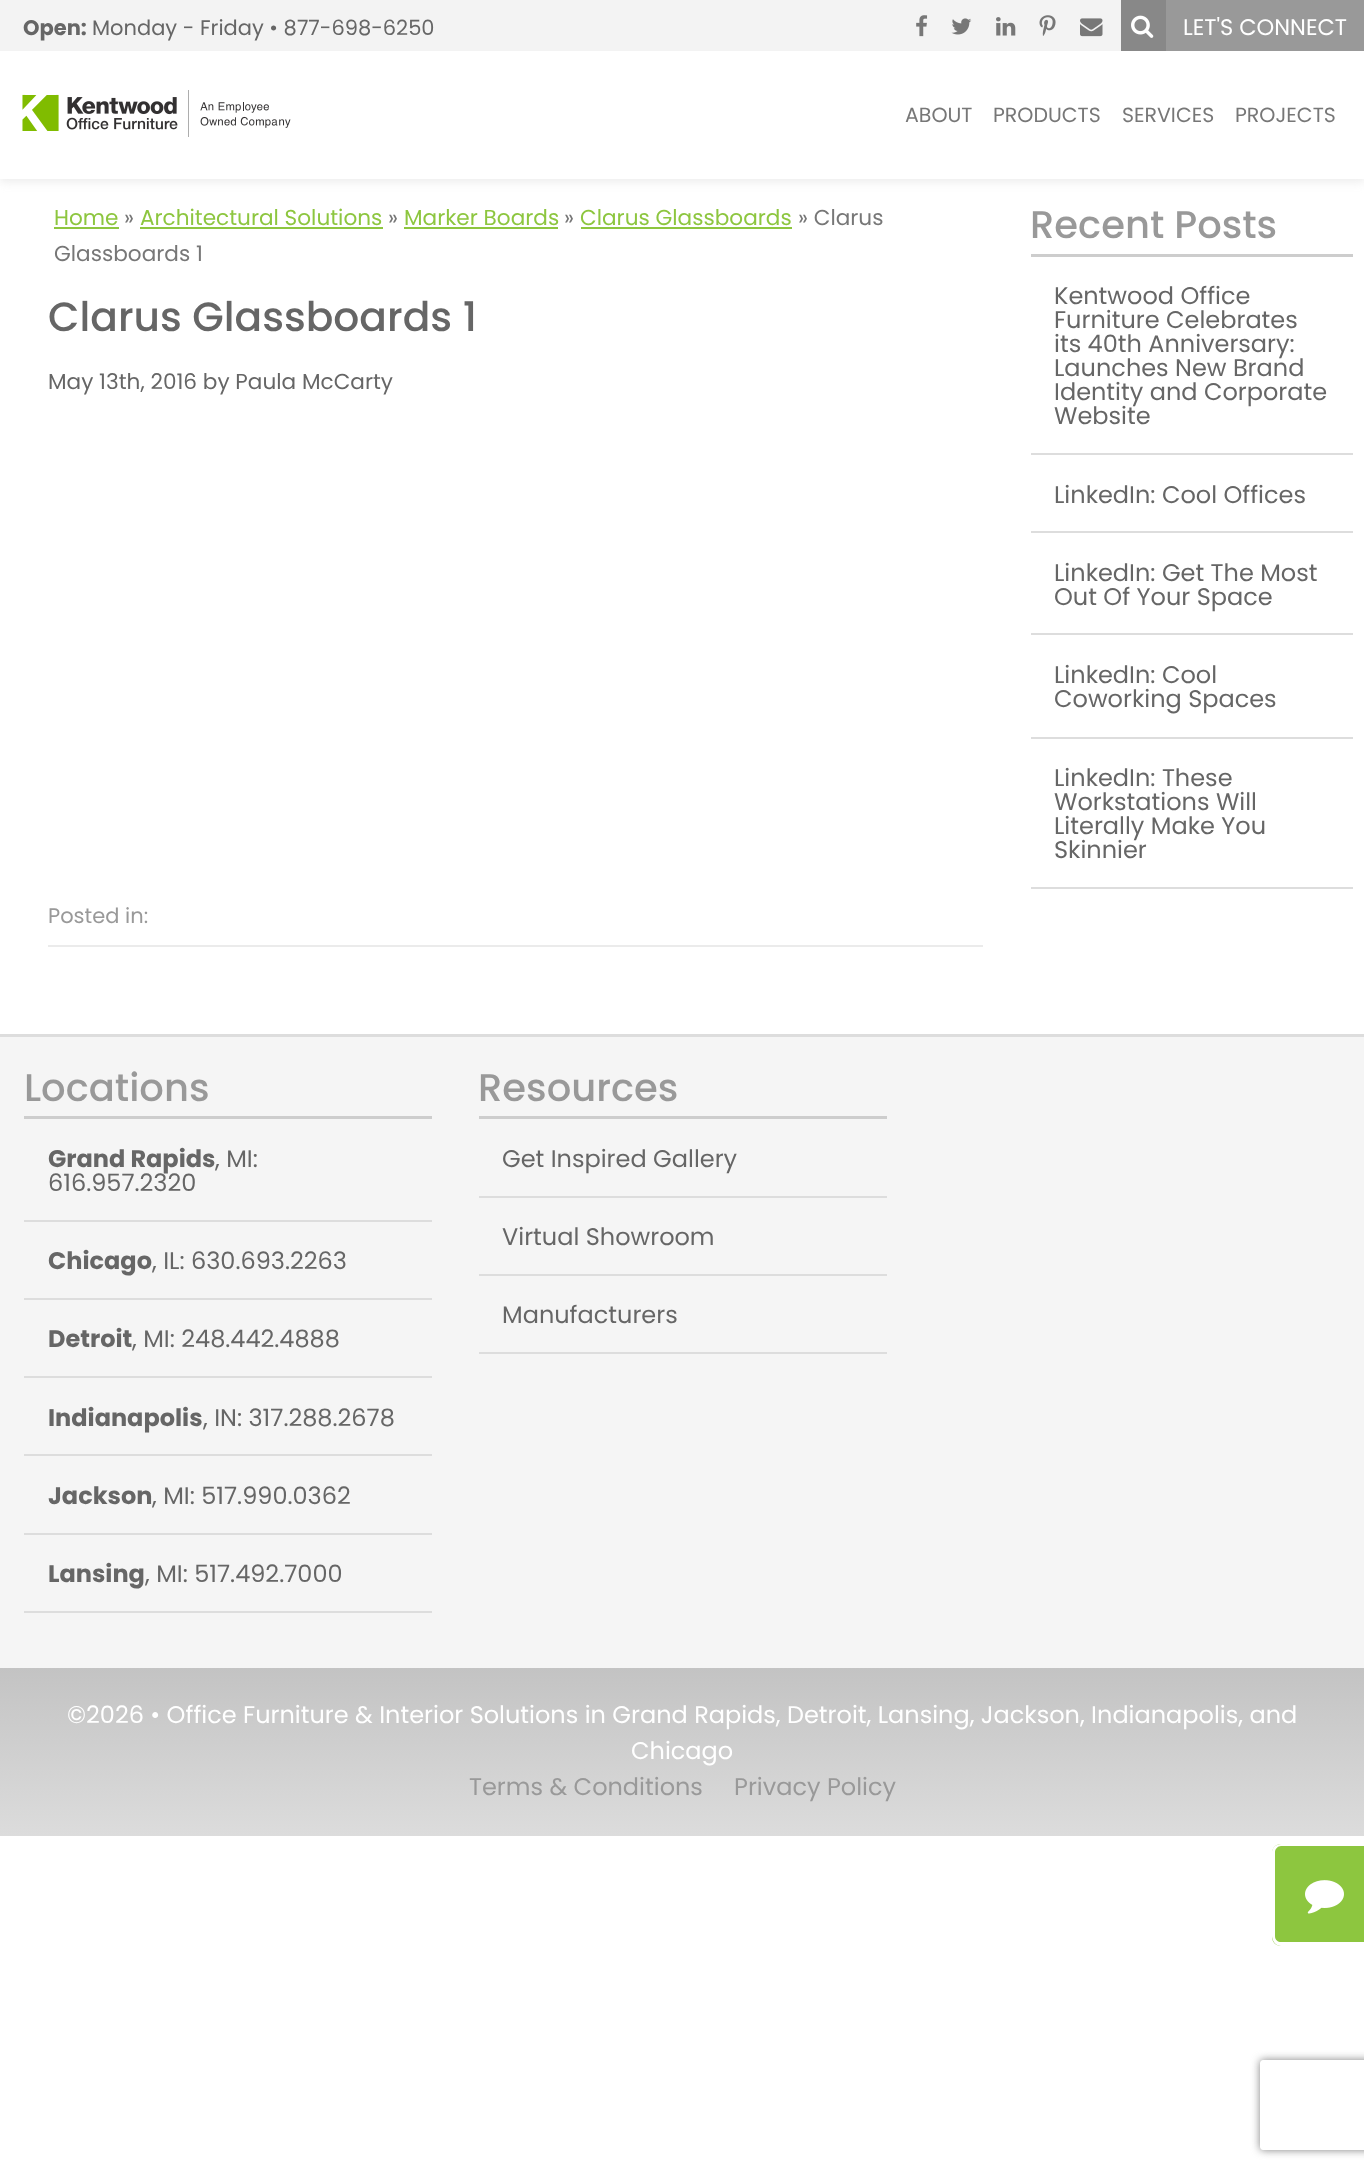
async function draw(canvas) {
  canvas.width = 1364
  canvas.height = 2170
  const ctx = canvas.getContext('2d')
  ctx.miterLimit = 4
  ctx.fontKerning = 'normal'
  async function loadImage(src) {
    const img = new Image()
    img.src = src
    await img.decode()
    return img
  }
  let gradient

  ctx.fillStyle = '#fff'
  ctx.fillRect(0, 0, 1364, 2170)
  ctx.fillStyle = '#d9d9d980'
  ctx.filter = 'blur(5px)'
  ctx.beginPath()
  ctx.rect(0, 3, 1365, 179)
  ctx.fill()
  ctx.filter = 'none'
  ctx.fillStyle = '#fff'
  ctx.fillRect(0, 51, 1364, 128)
  ctx.fillStyle = '#f3f3f3'
  ctx.fillRect(0, 0, 1121, 51)
  ctx.font = 'bold 21px Poppins'
  ctx.fillStyle = '#666'
  ctx.fillText('Open:', 23, 35)
  ctx.font = '21px Poppins'
  ctx.fillText('Monday - Friday • 877-698-6250', 92, 35)
  ctx.drawImage(await loadImage('image0.png'), 916, 15, 12, 22)
  ctx.drawImage(await loadImage('image1.png'), 951, 18, 21, 17)
  ctx.drawImage(await loadImage('image2.png'), 996, 17, 20, 19)
  ctx.drawImage(await loadImage('image3.png'), 1039, 15, 17, 21)
  ctx.drawImage(await loadImage('image4.png'), 1080, 18, 23, 19)
  ctx.fillStyle = '#888'
  ctx.fillRect(1121, 0, 45, 51)
  ctx.drawImage(await loadImage('image5.png'), 1131, 15, 23, 23)
  ctx.fillStyle = '#999'
  ctx.fillRect(1166, 0, 198, 51)
  ctx.font = '22.5px Poppins'
  ctx.fillStyle = '#fff'
  ctx.fillText('LET\'S CONNECT', 1183, 35)
  ctx.drawImage(await loadImage('image6.png'), 22, 90, 269, 47)
  ctx.font = '20.5px Poppins'
  ctx.fillStyle = '#777'
  ctx.fillText('ABOUT', 905, 122)
  ctx.fillText('PRODUCTS', 993, 122)
  ctx.fillText('SERVICES', 1122, 122)
  ctx.fillText('PROJECTS', 1235, 122)
  ctx.font = '21.6px Poppins'
  ctx.fillStyle = '#8dc63f'
  ctx.fillText('Home', 54, 225)
  ctx.fillRect(54, 227, 65, 2)
  ctx.fillStyle = '#777'
  ctx.fillText('»', 124, 225)
  ctx.fillStyle = '#8dc63f'
  ctx.fillText('Architectural Solutions', 140, 225)
  ctx.fillRect(140, 227, 243, 2)
  ctx.fillStyle = '#777'
  ctx.fillText('»', 388, 225)
  ctx.fillStyle = '#8dc63f'
  ctx.fillText('Marker Boards', 404, 225)
  ctx.fillRect(404, 227, 154, 2)
  ctx.fillStyle = '#777'
  ctx.fillText('»', 564, 225)
  ctx.fillStyle = '#8dc63f'
  ctx.fillText('Clarus Glassboards', 580, 225)
  ctx.fillRect(581, 227, 211, 2)
  ctx.fillStyle = '#777'
  ctx.fillText('» Clarus', 798, 225)
  ctx.fillText('Glassboards 1', 54, 261)
  ctx.font = '500 40.75px Poppins'
  ctx.fillStyle = '#666'
  ctx.fillText('Clarus Glassboards 1', 48, 331)
  ctx.font = '21.6px Poppins'
  ctx.fillText('May 13th, 2016 by Paula McCarty', 48, 389)
  ctx.font = '21px Poppins'
  ctx.fillStyle = '#999'
  ctx.fillText('Posted in:', 48, 923)
  ctx.fillStyle = '#ebebeb'
  ctx.fillRect(48, 945, 935, 2)
  ctx.fillStyle = '#8dc63f'
  ctx.beginPath()
  ctx.moveTo(1281, 1844)
  ctx.lineTo(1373, 1844)
  ctx.lineTo(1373, 1946)
  ctx.lineTo(1281, 1946)
  ctx.bezierCurveTo(1276, 1946, 1272, 1942, 1272, 1937)
  ctx.lineTo(1272, 1853)
  ctx.bezierCurveTo(1272, 1848, 1276, 1844, 1281, 1844)
  ctx.closePath()
  ctx.fill()
  ctx.fillStyle = '#fff'
  ctx.beginPath()
  ctx.moveTo(1281, 1844)
  ctx.lineTo(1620, 1844)
  ctx.lineTo(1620, 1946)
  ctx.lineTo(1281, 1946)
  ctx.bezierCurveTo(1276, 1946, 1272, 1941, 1272, 1936)
  ctx.lineTo(1272, 1852)
  ctx.bezierCurveTo(1272, 1848, 1276, 1844, 1281, 1844)
  ctx.closePath()
  ctx.moveTo(1281, 1846)
  ctx.lineTo(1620, 1846)
  ctx.lineTo(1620, 1942)
  ctx.lineTo(1281, 1942)
  ctx.bezierCurveTo(1278, 1942, 1275, 1940, 1275, 1936)
  ctx.lineTo(1275, 1852)
  ctx.bezierCurveTo(1275, 1849, 1278, 1846, 1281, 1846)
  ctx.closePath()
  ctx.fill('evenodd')
  ctx.drawImage(await loadImage('image7.png'), 1305, 1880, 39, 34)
  ctx.fillStyle = '#cdcdcd'
  ctx.fillRect(1031, 254, 322, 3)
  ctx.font = '500 38.5px Poppins'
  ctx.fillStyle = '#999'
  ctx.fillText('Recent Posts', 1030, 238)
  ctx.fillStyle = '#ddd'
  ctx.fillRect(1031, 453, 322, 2)
  ctx.font = '24px Poppins'
  ctx.fillStyle = '#666'
  ctx.fillText('Kentwood Office', 1054, 304)
  ctx.fillText('Furniture Celebrates', 1054, 328)
  ctx.fillText('its 40th Anniversary:', 1054, 352)
  ctx.fillText('Launches New Brand', 1054, 376)
  ctx.fillText('Identity and Corporate', 1054, 400)
  ctx.fillText('Website', 1054, 424)
  ctx.fillStyle = '#ddd'
  ctx.fillRect(1031, 531, 322, 2)
  ctx.fillStyle = '#666'
  ctx.fillText('LinkedIn: Cool Offices', 1054, 503)
  ctx.fillStyle = '#ddd'
  ctx.fillRect(1031, 633, 322, 2)
  ctx.fillStyle = '#666'
  ctx.fillText('LinkedIn: Get The Most', 1054, 581)
  ctx.fillText('Out Of Your Space', 1054, 605)
  ctx.fillStyle = '#ddd'
  ctx.fillRect(1031, 737, 322, 2)
  ctx.fillStyle = '#666'
  ctx.fillText('LinkedIn: Cool', 1054, 683)
  ctx.fillText('Coworking Spaces', 1054, 707)
  ctx.fillStyle = '#ddd'
  ctx.fillRect(1031, 887, 322, 2)
  ctx.fillStyle = '#666'
  ctx.fillText('LinkedIn: These', 1054, 786)
  ctx.fillText('Workstations Will', 1054, 810)
  ctx.fillText('Literally Make You', 1054, 834)
  ctx.fillText('Skinnier', 1054, 858)
  ctx.fillStyle = '#f5f5f5'
  ctx.fillRect(0, 1037, 1364, 631)
  ctx.fillStyle = '#ddd'
  ctx.fillRect(0, 1034, 1364, 3)
  ctx.fillStyle = '#cdcdcd'
  ctx.fillRect(24, 1116, 408, 3)
  ctx.font = '500 38.5px Poppins'
  ctx.fillStyle = '#999'
  ctx.fillText('Locations', 24, 1101)
  ctx.fillStyle = '#ddd'
  ctx.fillRect(24, 1220, 408, 2)
  ctx.font = 'bold 24px Poppins'
  ctx.fillStyle = '#666'
  ctx.fillText('Grand Rapids', 48, 1167)
  ctx.font = '24px Poppins'
  ctx.fillText(', MI:', 215, 1167)
  ctx.fillText('616.957.2320', 48, 1191)
  ctx.fillStyle = '#ddd'
  ctx.fillRect(24, 1298, 408, 2)
  ctx.font = 'bold 24px Poppins'
  ctx.fillStyle = '#666'
  ctx.fillText('Chicago', 48, 1269)
  ctx.font = '24px Poppins'
  ctx.fillText(', IL: 630.693.2263', 152, 1269)
  ctx.fillStyle = '#ddd'
  ctx.fillRect(24, 1376, 408, 2)
  ctx.font = 'bold 24px Poppins'
  ctx.fillStyle = '#666'
  ctx.fillText('Detroit', 48, 1347)
  ctx.font = '24px Poppins'
  ctx.fillText(', MI: 248.442.4888', 132, 1347)
  ctx.fillStyle = '#ddd'
  ctx.fillRect(24, 1454, 408, 2)
  ctx.font = 'bold 24px Poppins'
  ctx.fillStyle = '#666'
  ctx.fillText('Indianapolis', 48, 1426)
  ctx.font = '24px Poppins'
  ctx.fillText(', IN: 317.288.2678', 203, 1426)
  ctx.fillStyle = '#ddd'
  ctx.fillRect(24, 1533, 408, 2)
  ctx.font = 'bold 24px Poppins'
  ctx.fillStyle = '#666'
  ctx.fillText('Jackson', 48, 1504)
  ctx.font = '24px Poppins'
  ctx.fillText(', MI: 517.990.0362', 152, 1504)
  ctx.fillStyle = '#ddd'
  ctx.fillRect(24, 1611, 408, 2)
  ctx.font = 'bold 24px Poppins'
  ctx.fillStyle = '#666'
  ctx.fillText('Lansing', 48, 1582)
  ctx.font = '24px Poppins'
  ctx.fillText(', MI: 517.492.7000', 145, 1582)
  ctx.fillStyle = '#cdcdcd'
  ctx.fillRect(479, 1116, 408, 3)
  ctx.font = '500 38.5px Poppins'
  ctx.fillStyle = '#999'
  ctx.fillText('Resources', 478, 1101)
  ctx.fillStyle = '#ddd'
  ctx.fillRect(479, 1196, 408, 2)
  ctx.font = '24px Poppins'
  ctx.fillStyle = '#666'
  ctx.fillText('Get Inspired Gallery', 502, 1167)
  ctx.fillStyle = '#ddd'
  ctx.fillRect(479, 1274, 408, 2)
  ctx.fillStyle = '#666'
  ctx.fillText('Virtual Showroom', 502, 1245)
  ctx.fillStyle = '#ddd'
  ctx.fillRect(479, 1352, 408, 2)
  ctx.fillStyle = '#666'
  ctx.fillText('Manufacturers', 502, 1323)
  gradient = ctx.createLinearGradient(683, 1668, 683, 1836)
  gradient.addColorStop(0, '#c3c3c3')
  gradient.addColorStop(1, '#dcdcdc')
  ctx.fillStyle = gradient
  ctx.fillRect(0, 1668, 1364, 168)
  ctx.fillStyle = '#fff'
  ctx.fillText('©2026 • Office Furniture & Interior Solutions in Grand Rapids, Detroit, Lansing, Jackson, Indianapolis, and', 67, 1723)
  ctx.fillText('Chicago', 631, 1759)
  ctx.fillStyle = '#999'
  ctx.fillText('Terms & Conditions', 469, 1795)
  ctx.fillText('Privacy Policy', 734, 1795)
  ctx.save()
  ctx.beginPath()
  ctx.moveTo(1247, 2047)
  ctx.lineTo(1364, 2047)
  ctx.lineTo(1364, 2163)
  ctx.lineTo(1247, 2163)
  ctx.closePath()
  ctx.moveTo(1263, 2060)
  ctx.lineTo(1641, 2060)
  ctx.bezierCurveTo(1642.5, 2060, 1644, 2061.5, 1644, 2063)
  ctx.lineTo(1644, 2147)
  ctx.bezierCurveTo(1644, 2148.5, 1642.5, 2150, 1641, 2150)
  ctx.lineTo(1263, 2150)
  ctx.bezierCurveTo(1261.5, 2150, 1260, 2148.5, 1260, 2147)
  ctx.lineTo(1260, 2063)
  ctx.bezierCurveTo(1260, 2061.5, 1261.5, 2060, 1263, 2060)
  ctx.closePath()
  ctx.clip('evenodd')
  ctx.fillStyle = '#808080'
  ctx.filter = 'blur(4px)'
  ctx.beginPath()
  ctx.roundRect(1260, 2060, 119, 90, 3)
  ctx.fill()
  ctx.filter = 'none'
  ctx.restore()
}

draw(document.querySelector('canvas'))
